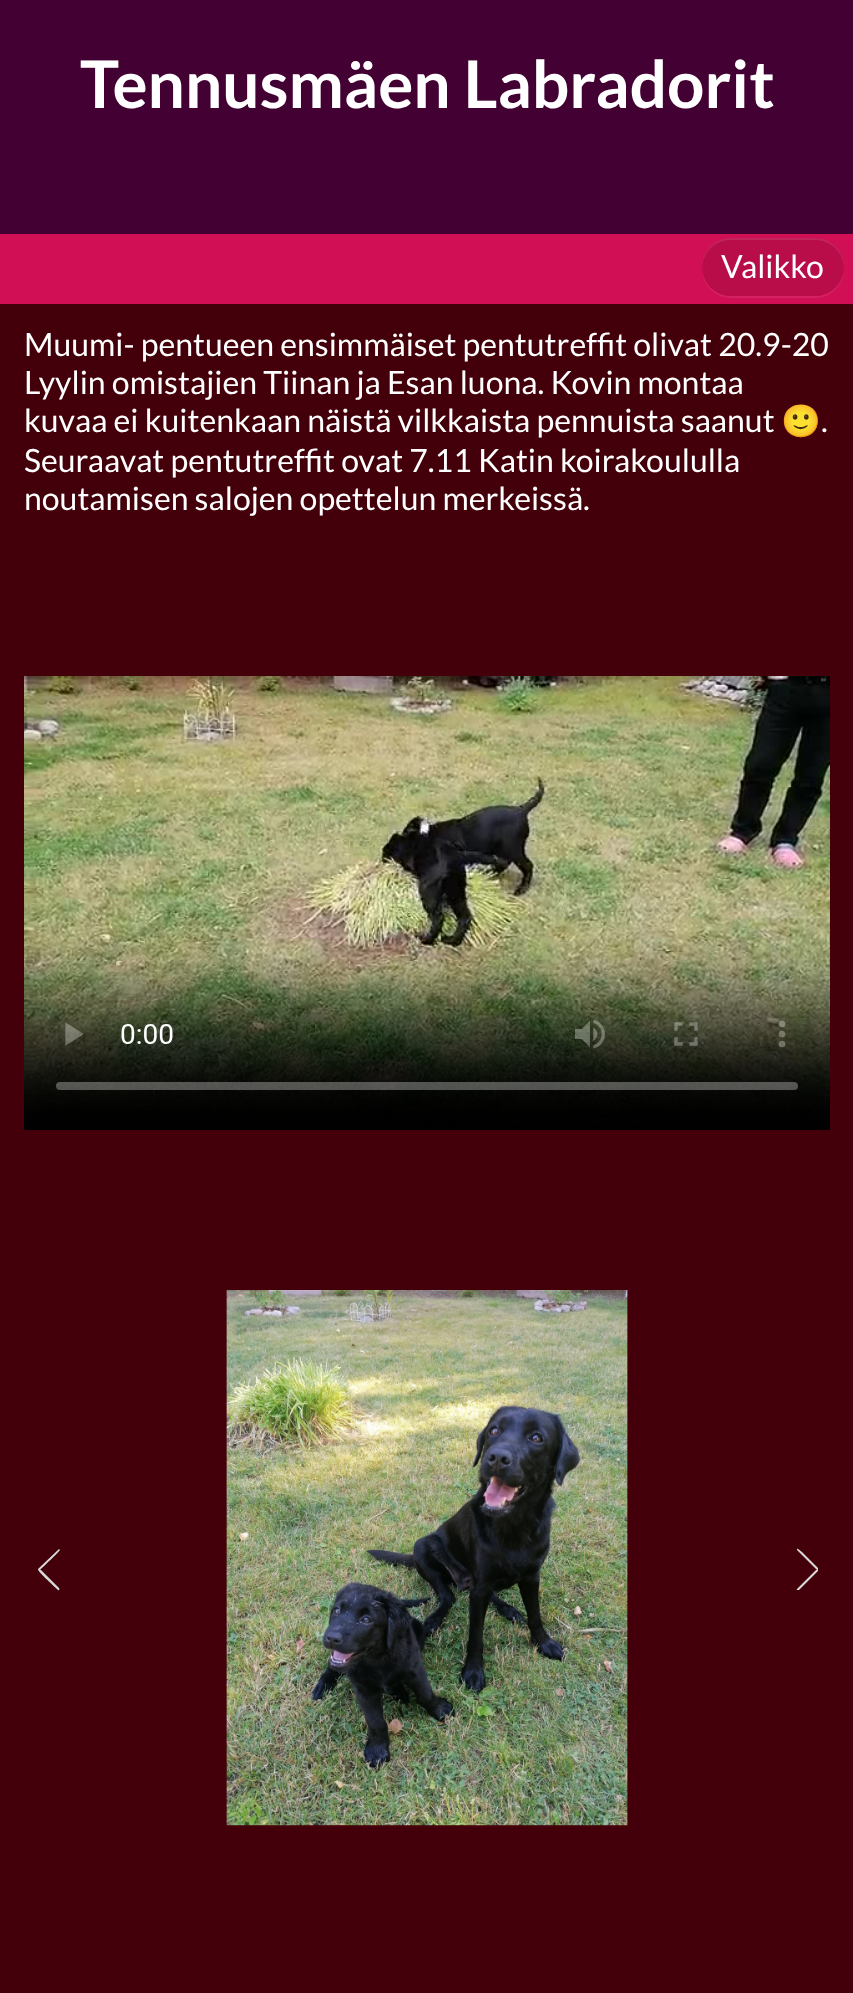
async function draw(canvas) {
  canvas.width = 853
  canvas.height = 1993
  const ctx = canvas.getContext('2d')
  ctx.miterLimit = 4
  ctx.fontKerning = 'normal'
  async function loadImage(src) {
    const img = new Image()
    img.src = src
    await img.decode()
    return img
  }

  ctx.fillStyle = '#43000a'
  ctx.fillRect(0, 0, 853, 1993)
  ctx.fillStyle = '#430032'
  ctx.fillRect(0, 0, 853, 234)
  ctx.font = 'bold 65.75px Lato'
  ctx.fillStyle = '#fff'
  ctx.fillText('Tennusmäen Labradorit', 80, 108)
  ctx.fillStyle = '#d10f54'
  ctx.fillRect(0, 234, 853, 70)
  ctx.fillStyle = '#d42161'
  ctx.beginPath()
  ctx.moveTo(702, 268)
  ctx.lineTo(702, 269)
  ctx.bezierCurveTo(702, 285, 715, 298, 731, 298)
  ctx.lineTo(815, 298)
  ctx.bezierCurveTo(831, 298, 844, 285, 844, 269)
  ctx.lineTo(844, 268)
  ctx.bezierCurveTo(843, 284, 831, 296, 815, 296)
  ctx.lineTo(731, 296)
  ctx.bezierCurveTo(715, 296, 703, 284, 702, 268)
  ctx.closePath()
  ctx.fill()
  ctx.fillStyle = '#b90d4a'
  ctx.beginPath()
  ctx.roundRect(702, 238, 142, 58, 29)
  ctx.fill()
  ctx.fillStyle = '#ffffff1a'
  ctx.beginPath()
  ctx.moveTo(731, 240)
  ctx.lineTo(815, 240)
  ctx.bezierCurveTo(831, 240, 843, 252, 844, 268)
  ctx.lineTo(844, 267)
  ctx.bezierCurveTo(844, 251, 831, 238, 815, 238)
  ctx.lineTo(731, 238)
  ctx.bezierCurveTo(715, 238, 702, 251, 702, 267)
  ctx.lineTo(702, 268)
  ctx.bezierCurveTo(703, 252, 715, 240, 731, 240)
  ctx.closePath()
  ctx.fill()
  ctx.font = '32px Lato'
  ctx.fillStyle = '#fff'
  ctx.fillText('Valikko', 721, 278)
  ctx.fillText('Muumi- pentueen ensimmäiset pentutreffit olivat 20.9-20', 24, 356)
  ctx.fillText('Lyylin omistajien Tiinan ja Esan luona. Kovin montaa', 24, 394)
  ctx.fillText('kuvaa ei kuitenkaan näistä vilkkaista pennuista saanut', 24, 432)
  ctx.font = '32px Noto Color Emoji'
  ctx.fillText('🙂', 781, 432)
  ctx.font = '32px Lato'
  ctx.fillText('.', 821, 432)
  ctx.fillText('Seuraavat pentutreffit ovat 7.11 Katin koirakoululla', 24, 472)
  ctx.fillText('noutamisen salojen opettelun merkeissä.', 24, 510)
  ctx.drawImage(await loadImage('image0.png'), 24, 676, 806, 454)
  ctx.fillStyle = '#d9d9d9'
  ctx.beginPath()
  ctx.moveTo(59, 1588)
  ctx.lineTo(40, 1569)
  ctx.lineTo(40, 1570)
  ctx.bezierCurveTo(42, 1568, 60, 1551, 60, 1550)
  ctx.lineTo(59, 1549)
  ctx.lineTo(38, 1569)
  ctx.bezierCurveTo(37, 1571, 53, 1585, 58, 1590)
  ctx.bezierCurveTo(59, 1591, 60, 1589, 59, 1588)
  ctx.closePath()
  ctx.fill('evenodd')
  ctx.drawImage(await loadImage('image1.png'), 226, 1290, 402, 536)
  ctx.save()
  ctx.beginPath()
  ctx.rect(796, 1548, 22, 42)
  ctx.clip()
  ctx.beginPath()
  ctx.moveTo(799, 1590)
  ctx.lineTo(815, 1574)
  ctx.bezierCurveTo(820, 1569, 820, 1570, 815, 1565)
  ctx.lineTo(802, 1552)
  ctx.bezierCurveTo(800, 1551, 798, 1548, 797, 1549)
  ctx.lineTo(797, 1550)
  ctx.lineTo(817, 1570)
  ctx.lineTo(817, 1569)
  ctx.lineTo(797, 1589)
  ctx.bezierCurveTo(796, 1590, 798, 1591, 799, 1590)
  ctx.closePath()
  ctx.fill('evenodd')
  ctx.restore()
}

draw(document.querySelector('canvas'))
